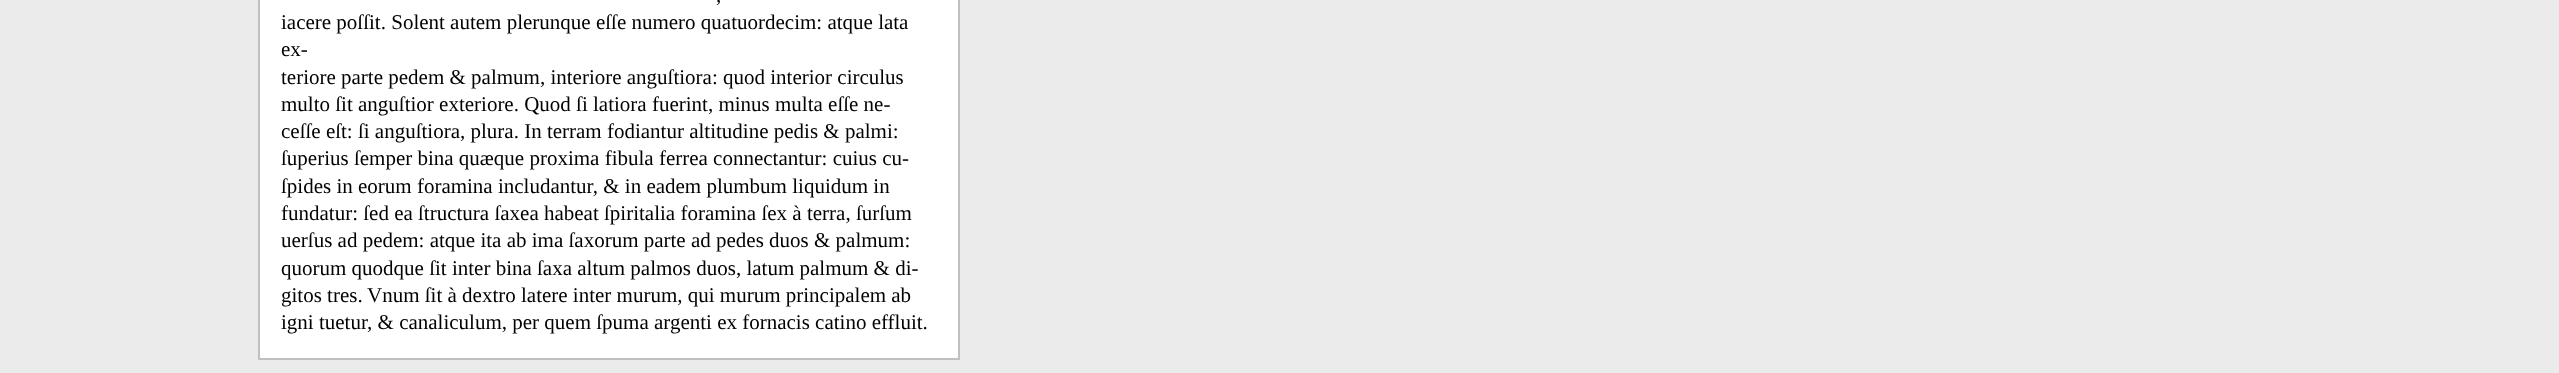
async function draw(canvas) {
  canvas.width = 2559
  canvas.height = 373
  const ctx = canvas.getContext('2d')
  ctx.miterLimit = 4
  ctx.fontKerning = 'normal'

  ctx.fillStyle = '#ebebeb'
  ctx.fillRect(0, 0, 2559, 373)
  ctx.fillStyle = '#fff'
  ctx.beginPath()
  ctx.rect(259, -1, 700, 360)
  ctx.fill()
  ctx.strokeStyle = '#c0c0c0'
  ctx.lineWidth = 2
  ctx.stroke()
  ctx.font = '21px Liberation Serif'
  ctx.fillStyle = '#000'
  ctx.fillText(',', 716, 2)
  ctx.fillText('iacere poſſit. Solent autem plerunque eſſe numero quatuordecim: atque lata', 281, 29)
  ctx.fillText('ex-', 281, 56)
  ctx.fillText('teriore parte pedem & palmum, interiore anguſtiora: quod interior circulus', 281, 84)
  ctx.fillText('multo ſit anguſtior exteriore. Quod ſi latiora fuerint, minus multa eſſe ne-', 281, 111)
  ctx.fillText('ceſſe eſt: ſi anguſtiora, plura. In terram fodiantur altitudine pedis & palmi:', 281, 138)
  ctx.fillText('ſuperius ſemper bina quæque proxima fibula ferrea connectantur: cuius cu-', 281, 165)
  ctx.fillText('ſpides in eorum foramina includantur, & in eadem plumbum liquidum in', 281, 193)
  ctx.fillText('fundatur: ſed ea ſtructura ſaxea habeat ſpiritalia foramina ſex à terra, ſurſum', 281, 220)
  ctx.fillText('uerſus ad pedem: atque ita ab ima ſaxorum parte ad pedes duos & palmum:', 281, 247)
  ctx.fillText('quorum quodque ſit inter bina ſaxa altum palmos duos, latum palmum & di-', 281, 275)
  ctx.fillText('gitos tres.', 281, 302)
  ctx.fillText('Vnum ſit à dextro latere inter murum, qui murum principalem ab', 367, 302)
  ctx.fillText('igni tuetur, & canaliculum, per quem ſpuma argenti ex fornacis catino effluit.', 281, 329)
}

draw(document.querySelector('canvas'))
